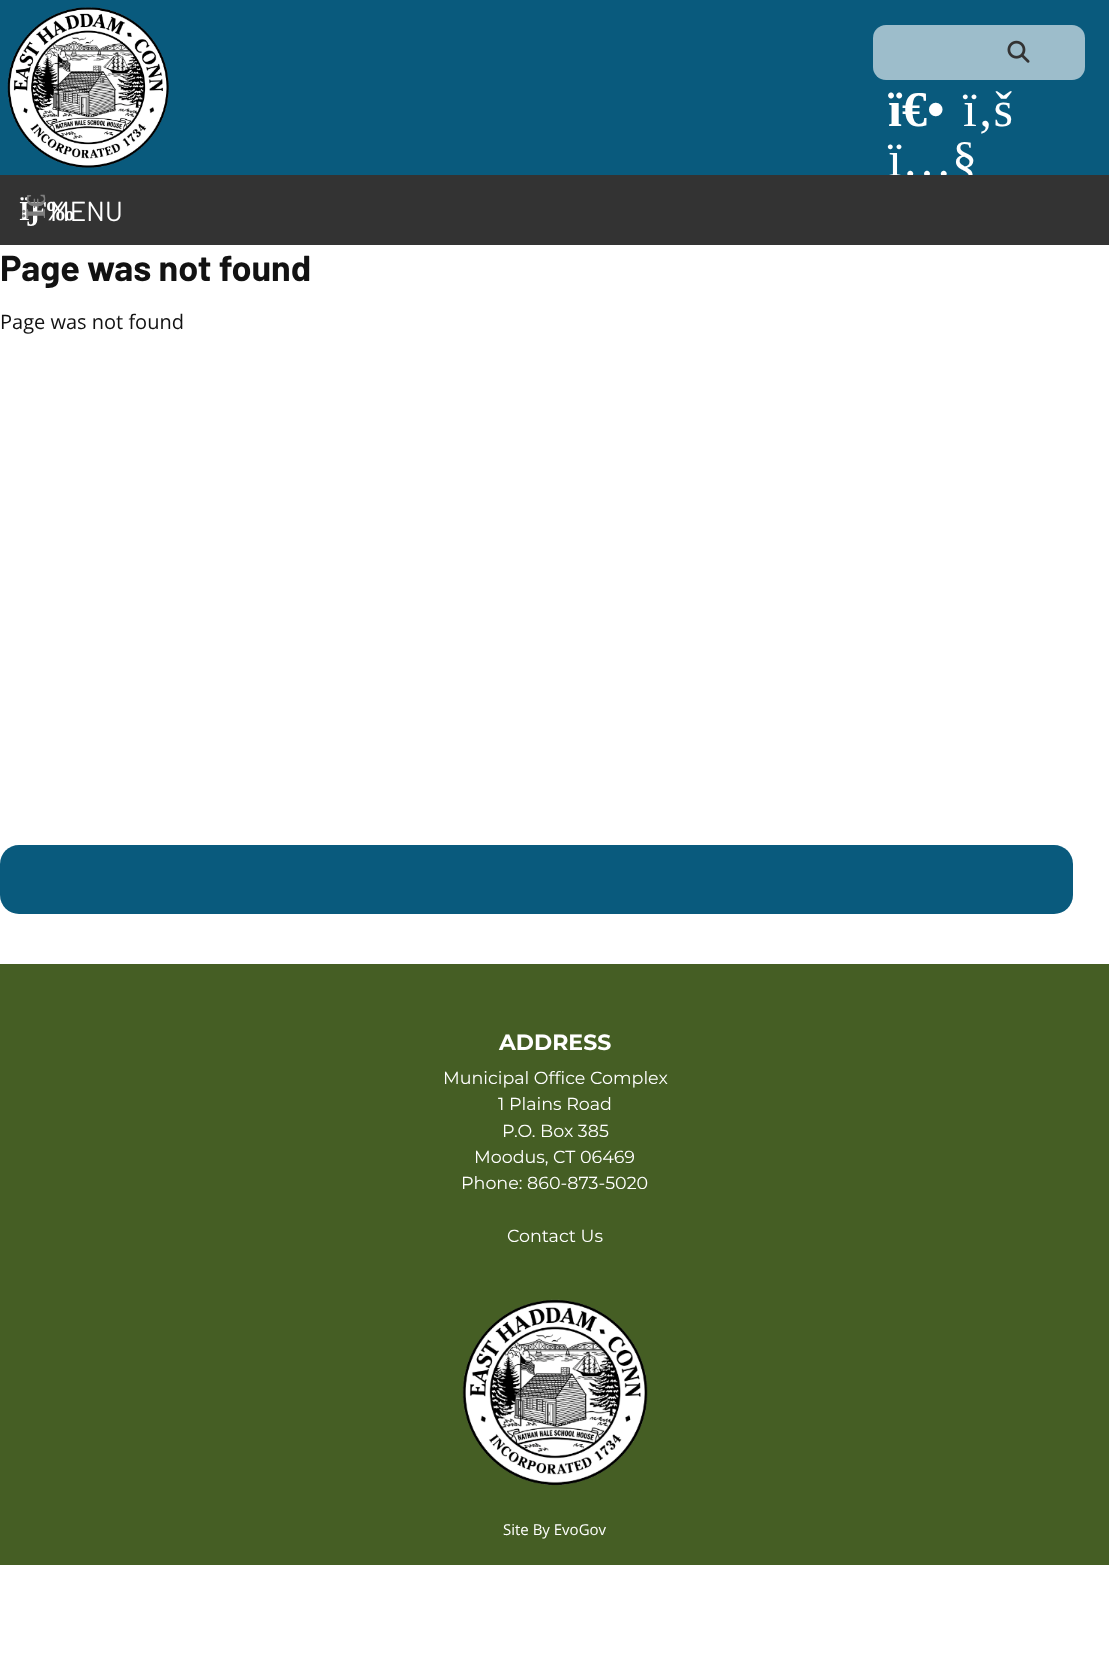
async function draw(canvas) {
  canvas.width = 1109
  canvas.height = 1671
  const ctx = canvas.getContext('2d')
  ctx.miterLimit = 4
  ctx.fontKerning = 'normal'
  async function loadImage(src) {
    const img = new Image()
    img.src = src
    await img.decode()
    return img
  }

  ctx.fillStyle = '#fff'
  ctx.fillRect(0, 0, 1109, 1671)
  ctx.fillStyle = '#095a7d'
  ctx.fillRect(0, 0, 1109, 175)
  ctx.drawImage(await loadImage('image0.png'), 7, 7, 162, 161)
  ctx.fillStyle = '#9dbdcb'
  ctx.beginPath()
  ctx.roundRect(873, 25, 212, 55, 13)
  ctx.fill()
  ctx.drawImage(await loadImage('image1.png'), 1007, 40, 23, 23)
  ctx.font = 'bold 50px Liberation Serif'
  ctx.fillStyle = '#fff'
  ctx.fillText('ï€•', 888, 126)
  ctx.font = '50px Liberation Serif'
  ctx.fillText('ï‚š', 963, 126)
  ctx.fillText('ï…§', 888, 176)
  ctx.fillStyle = '#333'
  ctx.fillRect(0, 175, 1109, 70)
  ctx.font = '27.5px Barlow'
  ctx.fillStyle = '#fff'
  ctx.fillText('MENU', 50, 221)
  ctx.font = 'bold 27.5px Liberation Serif'
  ctx.fillText('ÏƑ‰', 19, 220)
  ctx.fillStyle = '#7e7e7e'
  ctx.save()
  ctx.translate(45, 219)
  ctx.rotate(-90 * Math.PI / 180)
  ctx.fillText('Ï€', 0, 0)
  ctx.restore()
  ctx.font = 'bold 36px Barlow'
  ctx.fillStyle = '#121212'
  ctx.fillText('Page was not found', 0, 281)
  ctx.font = '20px Open Sans'
  ctx.fillText('Page was not found', 0, 329)
  ctx.fillStyle = '#095a7d'
  ctx.beginPath()
  ctx.roundRect(0, 845, 1073, 69, 19)
  ctx.fill()
  ctx.fillStyle = '#455e24'
  ctx.fillRect(0, 964, 1109, 601)
  ctx.font = 'bold 22px Montserrat'
  ctx.fillStyle = '#fff'
  ctx.fillText('ADDRESS', 499, 1050)
  ctx.font = '17.5px Montserrat'
  ctx.fillText('Municipal Office Complex', 443, 1084)
  ctx.fillText('1 Plains Road', 498, 1110)
  ctx.fillText('P.O. Box 385', 502, 1137)
  ctx.fillText('Moodus, CT 06469', 474, 1163)
  ctx.fillText('Phone: 860-873-5020', 461, 1189)
  ctx.fillText('Contact Us', 507, 1242)
  ctx.drawImage(await loadImage('image2.png'), 462, 1299, 186, 187)
  ctx.font = '15px Open Sans'
  ctx.fillText('Site By EvoGov', 503, 1535)
}

draw(document.querySelector('canvas'))
